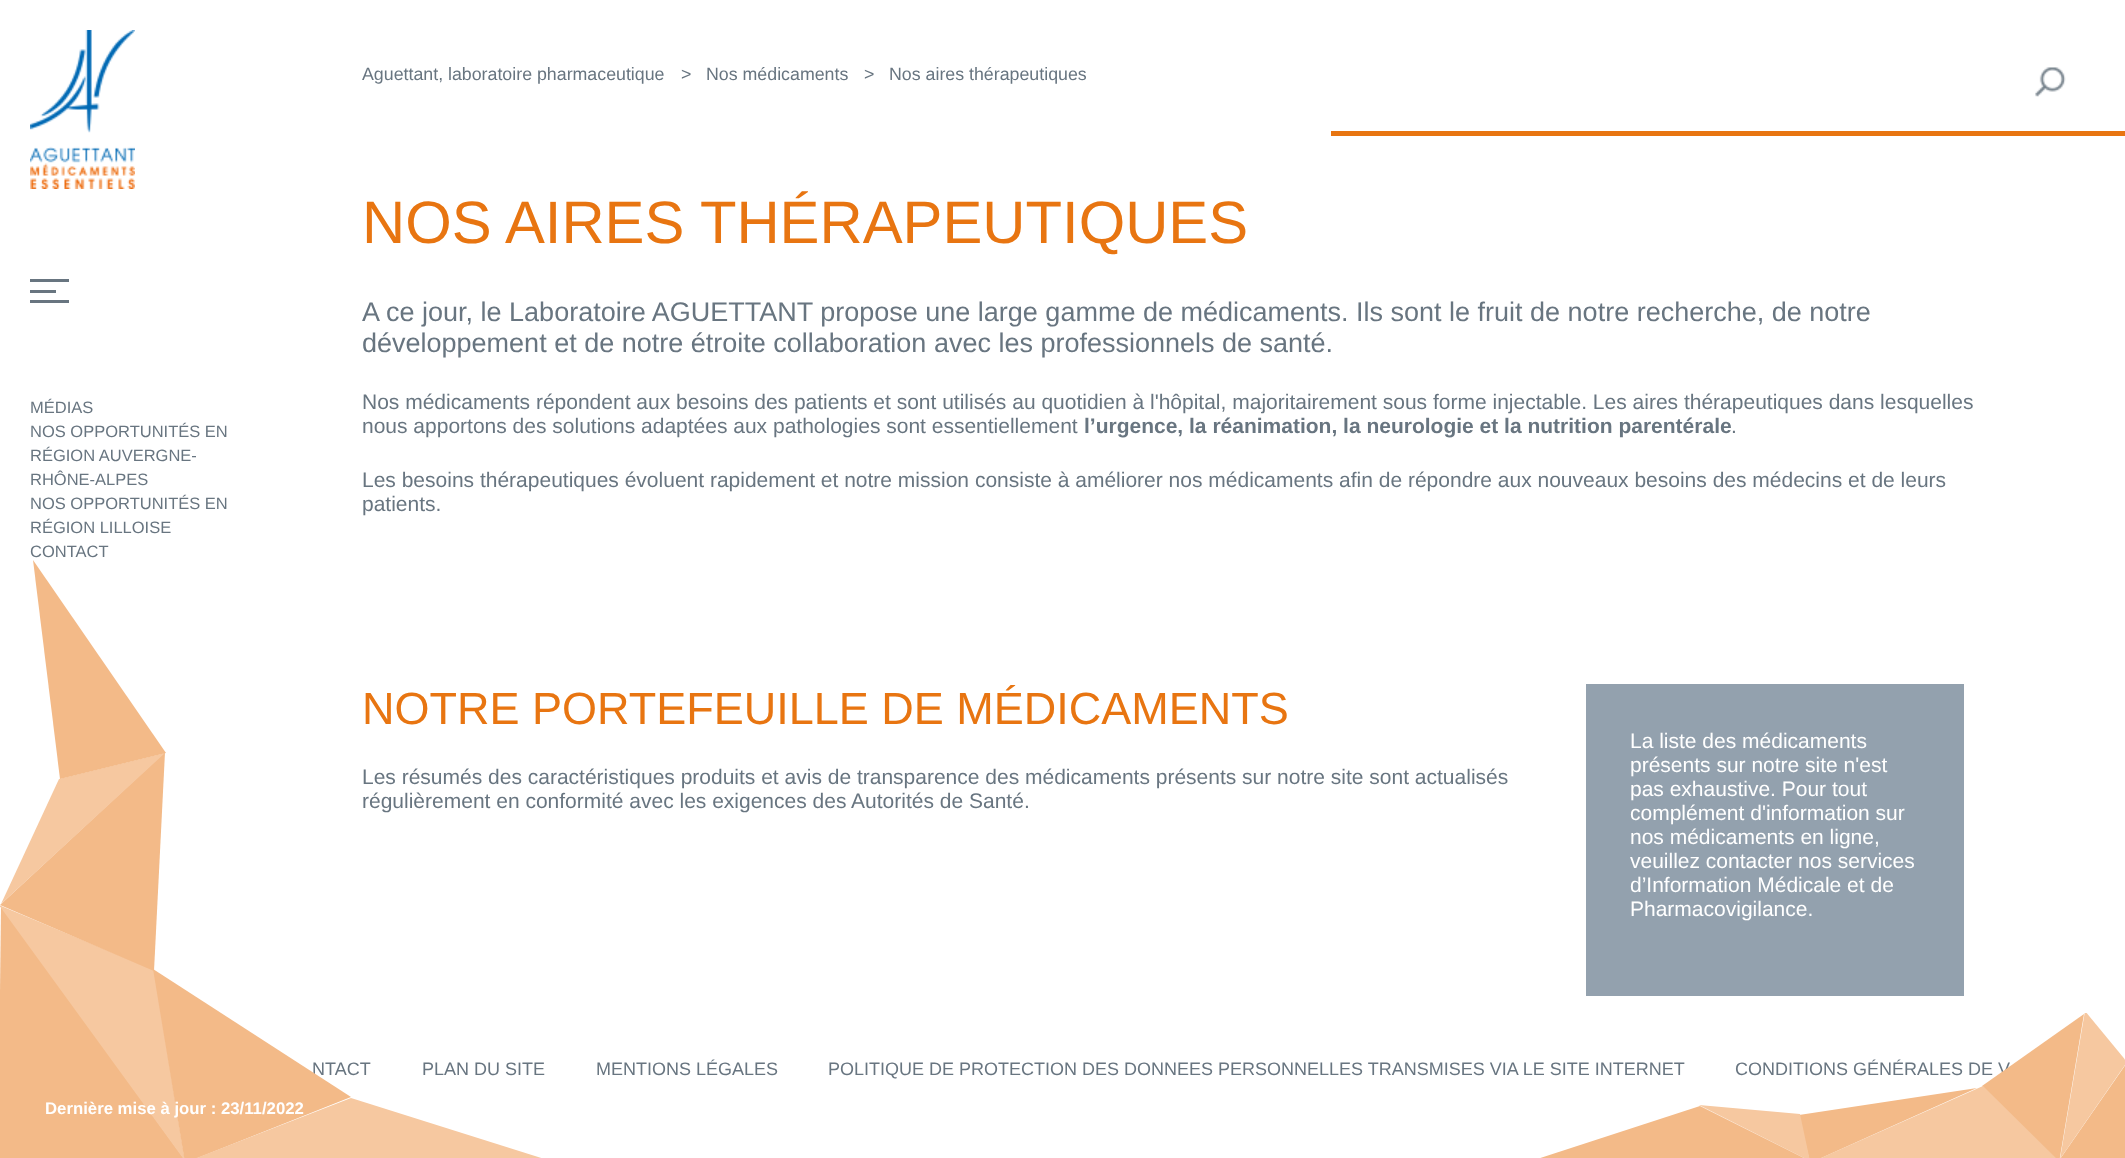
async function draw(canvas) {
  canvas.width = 2125
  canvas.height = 1158
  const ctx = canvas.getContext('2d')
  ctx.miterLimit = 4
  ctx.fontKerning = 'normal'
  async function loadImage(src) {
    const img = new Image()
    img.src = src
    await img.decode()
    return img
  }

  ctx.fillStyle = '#fff'
  ctx.fillRect(0, 0, 2125, 1158)
  ctx.drawImage(await loadImage('image0.png'), 30, 30, 105, 159)
  ctx.fillStyle = '#687580'
  ctx.fillRect(30, 279, 39, 3)
  ctx.fillRect(30, 290, 26, 3)
  ctx.fillRect(30, 300, 39, 3)
  ctx.font = '16.5px Liberation Sans'
  ctx.fillText('MÉDIAS', 30, 413)
  ctx.fillText('NOS OPPORTUNITÉS EN', 30, 437)
  ctx.fillText('RÉGION AUVERGNE-', 30, 461)
  ctx.fillText('RHÔNE-ALPES', 30, 485)
  ctx.fillText('NOS OPPORTUNITÉS EN', 30, 509)
  ctx.fillText('RÉGION LILLOISE', 30, 533)
  ctx.fillText('CONTACT', 30, 557)
  ctx.font = '17.8px Liberation Sans'
  ctx.fillText('Aguettant, laboratoire pharmaceutique', 362, 80)
  ctx.fillText('>', 681, 80)
  ctx.fillText('Nos médicaments', 706, 80)
  ctx.fillText('>', 864, 80)
  ctx.fillText('Nos aires thérapeutiques', 889, 80)
  ctx.fillStyle = '#e87511'
  ctx.fillRect(1331, 131, 794, 5)
  ctx.drawImage(await loadImage('image1.png'), 2035, 67, 31, 30)
  ctx.font = '59.8px Liberation Sans'
  ctx.fillText('NOS AIRES THÉRAPEUTIQUES', 362, 243)
  ctx.font = '27px Liberation Sans'
  ctx.fillStyle = '#687580'
  ctx.fillText('A ce jour, le Laboratoire AGUETTANT propose une large gamme de médicaments. Ils sont le fruit de notre recherche, de notre', 362, 321)
  ctx.fillText('développement et de notre étroite collaboration avec les professionnels de santé.', 362, 352)
  ctx.font = '21px Liberation Sans'
  ctx.fillText('Nos médicaments répondent aux besoins des patients et sont utilisés au quotidien à l\'hôpital, majoritairement sous forme injectable. Les aires thérapeutiques dans lesquelles', 362, 409)
  ctx.fillText('nous apportons des solutions adaptées aux pathologies sont essentiellement', 362, 433)
  ctx.font = 'bold 21px Liberation Sans'
  ctx.fillText('l’urgence, la réanimation, la neurologie et la nutrition parentérale', 1084, 433)
  ctx.font = '21px Liberation Sans'
  ctx.fillText('.', 1731, 433)
  ctx.fillText('Les besoins thérapeutiques évoluent rapidement et notre mission consiste à améliorer nos médicaments afin de répondre aux nouveaux besoins des médecins et de leurs', 362, 487)
  ctx.fillText('patients.', 362, 511)
  ctx.font = '45px Liberation Sans'
  ctx.fillStyle = '#e87511'
  ctx.fillText('NOTRE PORTEFEUILLE DE MÉDICAMENTS', 362, 724)
  ctx.font = '21px Liberation Sans'
  ctx.fillStyle = '#687580'
  ctx.fillText('Les résumés des caractéristiques produits et avis de transparence des médicaments présents sur notre site sont actualisés', 362, 784)
  ctx.fillText('régulièrement en conformité avec les exigences des Autorités de Santé.', 362, 808)
  ctx.fillStyle = '#93a1ae'
  ctx.fillRect(1586, 684, 378, 312)
  ctx.fillStyle = '#fff'
  ctx.fillText('La liste des médicaments', 1630, 748)
  ctx.fillText('présents sur notre site n\'est', 1630, 772)
  ctx.fillText('pas exhaustive. Pour tout', 1630, 796)
  ctx.fillText('complément d\'information sur', 1630, 820)
  ctx.fillText('nos médicaments en ligne,', 1630, 844)
  ctx.fillText('veuillez contacter nos services', 1630, 868)
  ctx.fillText('d’Information Médicale et de', 1630, 892)
  ctx.fillText('Pharmacovigilance.', 1630, 916)
  ctx.fillStyle = '#f3ba88'
  ctx.beginPath()
  ctx.moveTo(1, 906)
  ctx.lineTo(185, 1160)
  ctx.lineTo(-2, 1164)
  ctx.closePath()
  ctx.fill()
  ctx.fillStyle = '#f6c8a0'
  ctx.beginPath()
  ctx.moveTo(185, 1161)
  ctx.lineTo(-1, 905)
  ctx.lineTo(154, 970)
  ctx.closePath()
  ctx.fill()
  ctx.fillStyle = '#f3ba88'
  ctx.beginPath()
  ctx.moveTo(154, 971)
  ctx.lineTo(0, 905)
  ctx.lineTo(165, 752)
  ctx.closePath()
  ctx.fill()
  ctx.fillStyle = '#f6c8a0'
  ctx.beginPath()
  ctx.moveTo(165, 753)
  ctx.lineTo(1, 904)
  ctx.lineTo(59, 779)
  ctx.closePath()
  ctx.fill()
  ctx.fillStyle = '#f3ba88'
  ctx.beginPath()
  ctx.moveTo(166, 753)
  ctx.lineTo(60, 779)
  ctx.lineTo(33, 560)
  ctx.closePath()
  ctx.fill()
  ctx.font = '18px Liberation Sans'
  ctx.fillStyle = '#687580'
  ctx.fillText('NTACT', 312, 1075)
  ctx.fillStyle = '#f3ba88'
  ctx.beginPath()
  ctx.moveTo(351, 1097)
  ctx.lineTo(185, 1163)
  ctx.lineTo(153, 969)
  ctx.closePath()
  ctx.fill()
  ctx.fillStyle = '#f6c8a0'
  ctx.beginPath()
  ctx.moveTo(554, 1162)
  ctx.lineTo(186, 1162)
  ctx.lineTo(351, 1098)
  ctx.closePath()
  ctx.fill()
  ctx.fillStyle = '#f3ba88'
  ctx.beginPath()
  ctx.moveTo(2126, 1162)
  ctx.lineTo(2058, 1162)
  ctx.lineTo(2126, 1064)
  ctx.closePath()
  ctx.fill()
  ctx.save()
  ctx.beginPath()
  ctx.rect(1526, 1013, 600, 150)
  ctx.clip()
  ctx.fillStyle = '#f6c8a0'
  ctx.beginPath()
  ctx.moveTo(2060, 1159)
  ctx.lineTo(2085, 1011)
  ctx.lineTo(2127, 1062)
  ctx.closePath()
  ctx.fill()
  ctx.restore()
  ctx.fillStyle = '#687580'
  ctx.fillText('CONDITIONS GÉNÉRALES DE V', 1735, 1075)
  ctx.fillStyle = '#f3ba88'
  ctx.beginPath()
  ctx.moveTo(2059, 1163)
  ctx.lineTo(1982, 1086)
  ctx.lineTo(2084, 1014)
  ctx.closePath()
  ctx.fill()
  ctx.fillStyle = '#f6c8a0'
  ctx.beginPath()
  ctx.moveTo(2060, 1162)
  ctx.lineTo(1812, 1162)
  ctx.lineTo(1983, 1086)
  ctx.closePath()
  ctx.fill()
  ctx.fillStyle = '#f3ba88'
  ctx.beginPath()
  ctx.moveTo(1977, 1088)
  ctx.lineTo(1810, 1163)
  ctx.lineTo(1799, 1115)
  ctx.closePath()
  ctx.fill()
  ctx.fillStyle = '#f6c8a0'
  ctx.beginPath()
  ctx.moveTo(1810, 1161)
  ctx.lineTo(1699, 1105)
  ctx.lineTo(1800, 1114)
  ctx.closePath()
  ctx.fill()
  ctx.fillStyle = '#f3ba88'
  ctx.beginPath()
  ctx.moveTo(1812, 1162)
  ctx.lineTo(1528, 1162)
  ctx.lineTo(1700, 1106)
  ctx.closePath()
  ctx.fill()
  ctx.fillStyle = '#687580'
  ctx.fillText('PLAN DU SITE', 422, 1075)
  ctx.fillText('MENTIONS LÉGALES', 596, 1075)
  ctx.fillText('POLITIQUE DE PROTECTION DES DONNEES PERSONNELLES TRANSMISES VIA LE SITE INTERNET', 828, 1075)
  ctx.font = 'bold 16.75px Liberation Sans'
  ctx.fillStyle = '#fff'
  ctx.fillText('Dernière mise à jour : 23/11/2022', 45, 1114)
}

draw(document.querySelector('canvas'))
